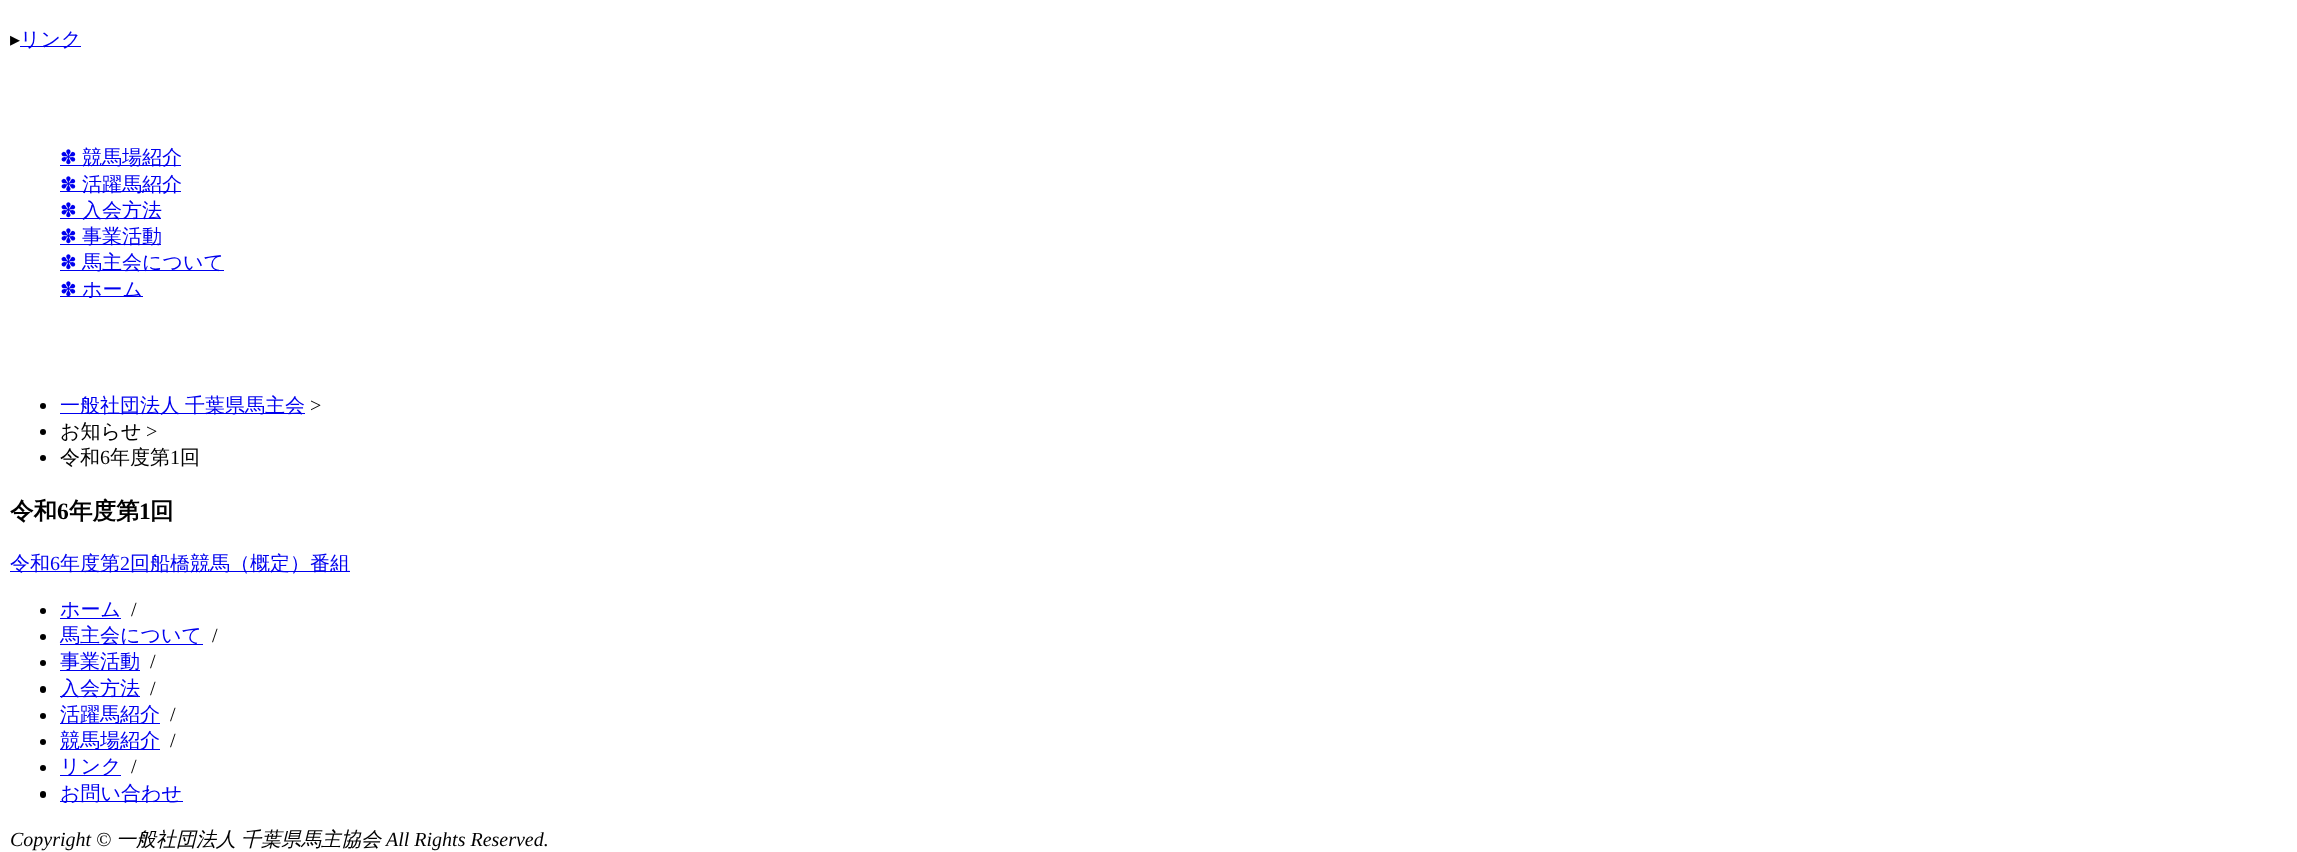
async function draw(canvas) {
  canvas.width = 2297
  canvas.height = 852
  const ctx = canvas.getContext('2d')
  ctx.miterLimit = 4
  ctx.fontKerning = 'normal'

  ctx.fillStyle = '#fff'
  ctx.fillRect(0, 0, 2297, 852)
  ctx.font = '20px DejaVu Sans'
  ctx.fillStyle = '#000'
  ctx.fillText('▸', 10, 46)
  ctx.fillStyle = '#00e'
  ctx.fillRect(20, 46, 61, 1)
  ctx.font = '500 20px WenQuanYi Zen Hei'
  ctx.fillText('リンク', 20, 46)
  ctx.font = '20px DejaVu Sans'
  ctx.fillText('✽', 60, 164)
  ctx.fillRect(60, 165, 121, 1)
  ctx.font = '500 20px WenQuanYi Zen Hei'
  ctx.fillText('競馬場紹介', 82, 164)
  ctx.fillRect(60, 191, 121, 1)
  ctx.font = '20px DejaVu Sans'
  ctx.fillText('✽', 60, 191)
  ctx.font = '500 20px WenQuanYi Zen Hei'
  ctx.fillText('活躍馬紹介', 82, 191)
  ctx.font = '20px DejaVu Sans'
  ctx.fillText('✽', 60, 217)
  ctx.fillRect(60, 218, 101, 1)
  ctx.font = '500 20px WenQuanYi Zen Hei'
  ctx.fillText('入会方法', 82, 217)
  ctx.font = '20px DejaVu Sans'
  ctx.fillText('✽', 60, 243)
  ctx.fillRect(60, 244, 101, 1)
  ctx.font = '500 20px WenQuanYi Zen Hei'
  ctx.fillText('事業活動', 82, 243)
  ctx.font = '20px DejaVu Sans'
  ctx.fillText('✽', 60, 269)
  ctx.fillRect(60, 270, 164, 1)
  ctx.font = '500 20px WenQuanYi Zen Hei'
  ctx.fillText('馬主会について', 82, 269)
  ctx.fillRect(60, 296, 83, 1)
  ctx.font = '20px DejaVu Sans'
  ctx.fillText('✽', 60, 296)
  ctx.font = '500 20px WenQuanYi Zen Hei'
  ctx.fillText('ホーム', 82, 296)
  ctx.fillStyle = '#000'
  ctx.beginPath()
  ctx.arc(43, 406, 3, 0, 2 * Math.PI)
  ctx.fill()
  ctx.fillStyle = '#00e'
  ctx.fillRect(60, 413, 245, 1)
  ctx.wordSpacing = '-1px'
  ctx.fillText('一般社団法人 千葉県馬主会', 60, 412)
  ctx.wordSpacing = '0px'
  ctx.font = '20px Liberation Serif'
  ctx.fillStyle = '#000'
  ctx.fillText('>', 310, 412)
  ctx.beginPath()
  ctx.arc(43, 432, 3, 0, 2 * Math.PI)
  ctx.fill()
  ctx.font = '500 20px WenQuanYi Zen Hei'
  ctx.fillText('お知らせ', 60, 438)
  ctx.font = '20px Liberation Serif'
  ctx.fillText('>', 146, 438)
  ctx.beginPath()
  ctx.arc(43, 458, 3, 0, 2 * Math.PI)
  ctx.fill()
  ctx.font = '500 20px WenQuanYi Zen Hei'
  ctx.fillText('令和', 60, 464)
  ctx.font = '20px Liberation Serif'
  ctx.fillText('6', 100, 464)
  ctx.font = '500 20px WenQuanYi Zen Hei'
  ctx.fillText('年度第', 110, 464)
  ctx.font = '20px Liberation Serif'
  ctx.fillText('1', 170, 464)
  ctx.font = '500 20px WenQuanYi Zen Hei'
  ctx.fillText('回', 180, 464)
  ctx.font = 'bold 23.5px WenQuanYi Zen Hei'
  ctx.fillText('令和', 10, 519)
  ctx.font = 'bold 23.5px Liberation Serif'
  ctx.fillText('6', 57, 519)
  ctx.font = 'bold 23.5px WenQuanYi Zen Hei'
  ctx.fillText('年度第', 69, 519)
  ctx.font = 'bold 23.5px Liberation Serif'
  ctx.fillText('1', 139, 519)
  ctx.font = 'bold 23.5px WenQuanYi Zen Hei'
  ctx.fillText('回', 150, 519)
  ctx.fillStyle = '#00e'
  ctx.fillRect(10, 571, 340, 1)
  ctx.font = '500 20px WenQuanYi Zen Hei'
  ctx.fillText('令和', 10, 570)
  ctx.font = '20px Liberation Serif'
  ctx.fillText('6', 50, 570)
  ctx.font = '500 20px WenQuanYi Zen Hei'
  ctx.fillText('年度第', 60, 570)
  ctx.font = '20px Liberation Serif'
  ctx.fillText('2', 120, 570)
  ctx.font = '500 20px WenQuanYi Zen Hei'
  ctx.fillText('回船橋競馬（概定）番組', 130, 570)
  ctx.fillStyle = '#000'
  ctx.beginPath()
  ctx.arc(43, 611, 3, 0, 2 * Math.PI)
  ctx.fill()
  ctx.fillStyle = '#00e'
  ctx.fillRect(60, 618, 61, 1)
  ctx.fillText('ホーム', 60, 616)
  ctx.font = '20px Liberation Serif'
  ctx.fillStyle = '#000'
  ctx.fillText('/', 131, 616)
  ctx.beginPath()
  ctx.arc(43, 637, 3, 0, 2 * Math.PI)
  ctx.fill()
  ctx.fillStyle = '#00e'
  ctx.fillRect(60, 644, 143, 1)
  ctx.font = '500 20px WenQuanYi Zen Hei'
  ctx.fillText('馬主会について', 60, 642)
  ctx.font = '20px Liberation Serif'
  ctx.fillStyle = '#000'
  ctx.fillText('/', 212, 642)
  ctx.beginPath()
  ctx.arc(43, 663, 3, 0, 2 * Math.PI)
  ctx.fill()
  ctx.fillStyle = '#00e'
  ctx.fillRect(60, 670, 80, 1)
  ctx.font = '500 20px WenQuanYi Zen Hei'
  ctx.fillText('事業活動', 60, 668)
  ctx.font = '20px Liberation Serif'
  ctx.fillStyle = '#000'
  ctx.fillText('/', 150, 668)
  ctx.beginPath()
  ctx.roundRect(40, 686, 6, 7, 3)
  ctx.fill()
  ctx.fillStyle = '#00e'
  ctx.fillRect(60, 696, 80, 1)
  ctx.font = '500 20px WenQuanYi Zen Hei'
  ctx.fillText('入会方法', 60, 695)
  ctx.font = '20px Liberation Serif'
  ctx.fillStyle = '#000'
  ctx.fillText('/', 150, 695)
  ctx.beginPath()
  ctx.arc(43, 716, 3, 0, 2 * Math.PI)
  ctx.fill()
  ctx.fillStyle = '#00e'
  ctx.fillRect(60, 723, 100, 1)
  ctx.font = '500 20px WenQuanYi Zen Hei'
  ctx.fillText('活躍馬紹介', 60, 721)
  ctx.font = '20px Liberation Serif'
  ctx.fillStyle = '#000'
  ctx.fillText('/', 170, 721)
  ctx.beginPath()
  ctx.arc(43, 742, 3, 0, 2 * Math.PI)
  ctx.fill()
  ctx.fillStyle = '#00e'
  ctx.fillRect(60, 749, 100, 1)
  ctx.font = '500 20px WenQuanYi Zen Hei'
  ctx.fillText('競馬場紹介', 60, 747)
  ctx.font = '20px Liberation Serif'
  ctx.fillStyle = '#000'
  ctx.fillText('/', 170, 747)
  ctx.beginPath()
  ctx.arc(43, 768, 3, 0, 2 * Math.PI)
  ctx.fill()
  ctx.fillStyle = '#00e'
  ctx.fillRect(60, 775, 61, 1)
  ctx.font = '500 20px WenQuanYi Zen Hei'
  ctx.fillText('リンク', 60, 773)
  ctx.font = '20px Liberation Serif'
  ctx.fillStyle = '#000'
  ctx.fillText('/', 131, 773)
  ctx.beginPath()
  ctx.roundRect(40, 791, 6, 7, 3)
  ctx.fill()
  ctx.fillStyle = '#00e'
  ctx.fillRect(60, 801, 123, 1)
  ctx.font = '500 20px WenQuanYi Zen Hei'
  ctx.fillText('お問い合わせ', 60, 800)
  ctx.font = 'italic 20px Liberation Serif'
  ctx.fillStyle = '#000'
  ctx.fillText('Copyright ©', 10, 846)
  ctx.font = 'italic 500 20px WenQuanYi Zen Hei'
  ctx.fillText('一般社団法人', 116, 846)
  ctx.fillText('千葉県馬主協会', 241, 846)
  ctx.font = 'italic 20px Liberation Serif'
  ctx.fillText('All Rights Reserved.', 386, 846)
}

draw(document.querySelector('canvas'))
